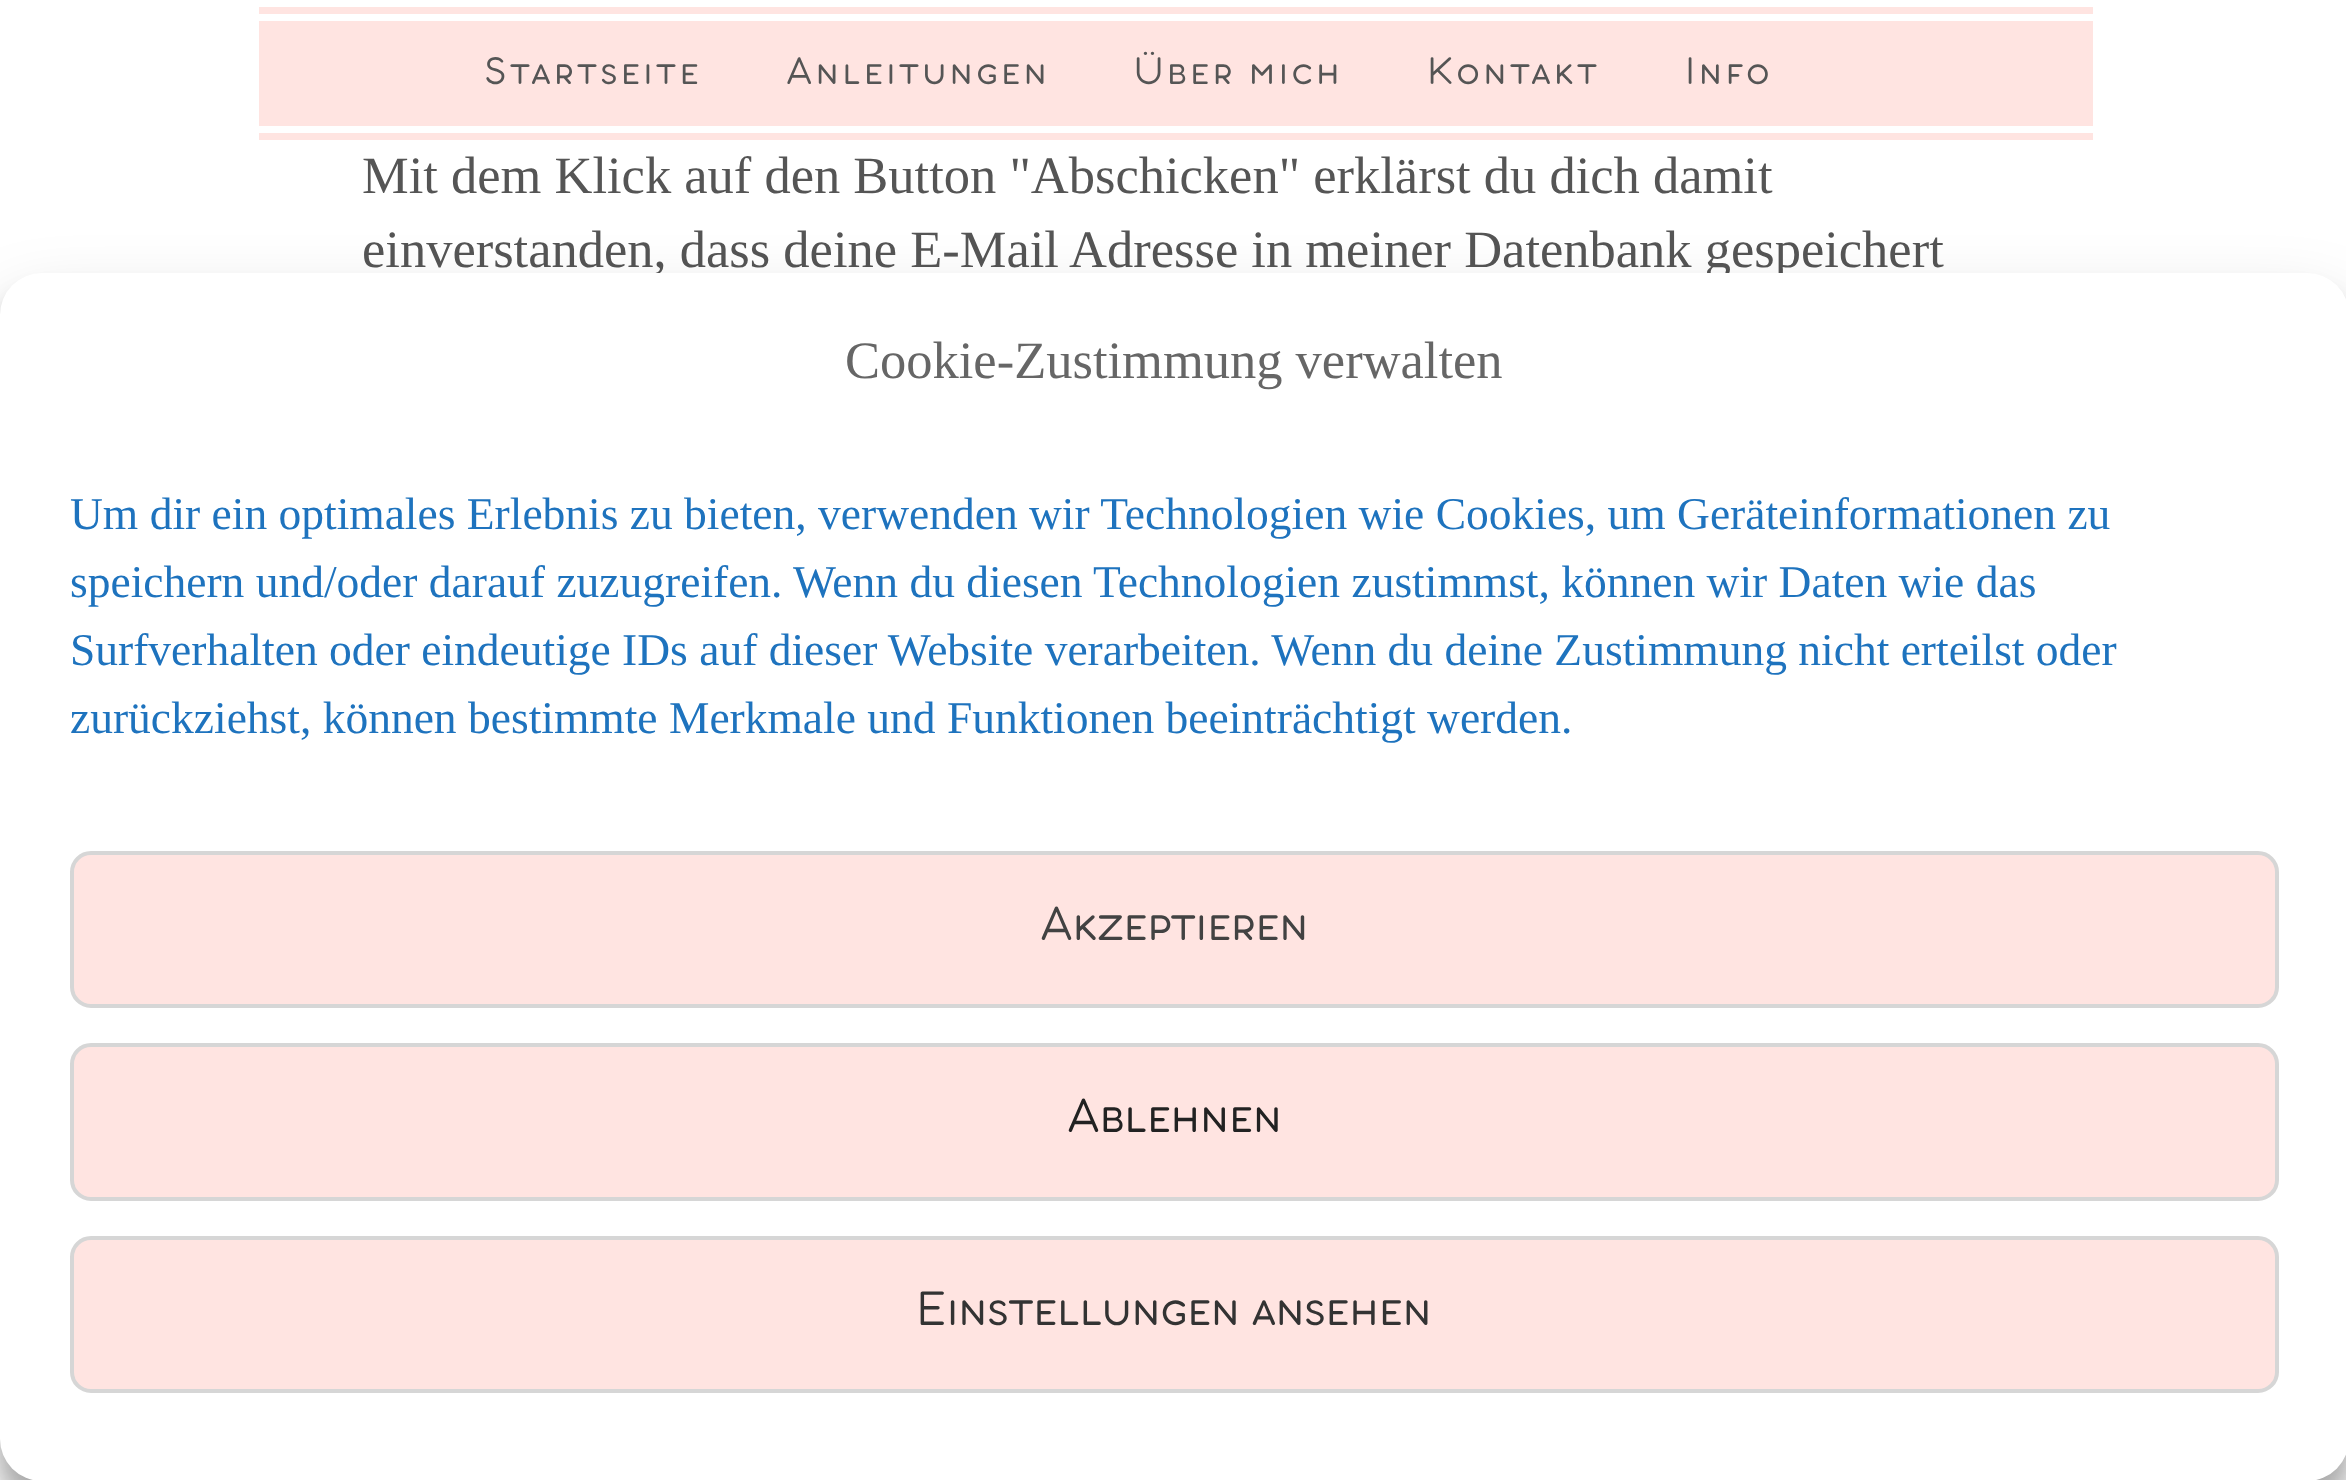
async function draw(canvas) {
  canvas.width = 2346
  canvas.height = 1480
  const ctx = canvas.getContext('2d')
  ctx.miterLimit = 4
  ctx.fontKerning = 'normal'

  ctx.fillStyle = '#fff'
  ctx.fillRect(0, 0, 2346, 1480)
  ctx.fillStyle = '#ffe4e1'
  ctx.fillRect(259, 7, 1834, 133)
  ctx.fillStyle = '#fff'
  ctx.fillRect(259, 14, 1834, 7)
  ctx.fillRect(259, 126, 1834, 7)
  ctx.letterSpacing = '3.5px'
  ctx.font = '300 42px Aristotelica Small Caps'
  ctx.fillStyle = '#555'
  ctx.fillText('Startseite', 484, 84)
  ctx.fillText('Anleitungen', 786, 84)
  ctx.fillText('Über mich', 1134, 84)
  ctx.fillText('Kontakt', 1427, 84)
  ctx.fillText('Info', 1685, 84)
  ctx.letterSpacing = '0px'
  ctx.font = '52.5px Liberation Serif'
  ctx.fillText('Mit dem Klick auf den Button "Abschicken" erklärst du dich damit', 362, 193)
  ctx.fillText('einverstanden, dass deine E-Mail Adresse in meiner Datenbank gespeichert', 362, 267)
  ctx.fillStyle = '#0000003b'
  ctx.filter = 'blur(10.5px)'
  ctx.beginPath()
  ctx.roundRect(0, 294, 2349, 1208, 42)
  ctx.fill()
  ctx.filter = 'none'
  ctx.fillStyle = '#00000030'
  ctx.filter = 'blur(35px)'
  ctx.beginPath()
  ctx.roundRect(0, 308, 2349, 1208, 42)
  ctx.fill()
  ctx.filter = 'none'
  ctx.fillStyle = '#fff'
  ctx.beginPath()
  ctx.roundRect(0, 273, 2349, 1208, 42)
  ctx.fill()
  ctx.fillStyle = '#666'
  ctx.fillText('Cookie-Zustimmung verwalten', 845, 378)
  ctx.font = '45.5px Liberation Serif'
  ctx.fillStyle = '#1e73be'
  ctx.fillText('Um dir ein optimales Erlebnis zu bieten, verwenden wir Technologien wie Cookies, um Geräteinformationen zu', 70, 529)
  ctx.fillText('speichern und/oder darauf zuzugreifen. Wenn du diesen Technologien zustimmst, können wir Daten wie das', 70, 597)
  ctx.fillText('Surfverhalten oder eindeutige IDs auf dieser Website verarbeiten. Wenn du deine Zustimmung nicht erteilst oder', 70, 665)
  ctx.fillText('zurückziehst, können bestimmte Merkmale und Funktionen beeinträchtigt werden.', 70, 733)
  ctx.fillStyle = '#ffe4e1'
  ctx.beginPath()
  ctx.roundRect(72, 853, 2205, 153, 19)
  ctx.fill()
  ctx.strokeStyle = '#d6d6d6'
  ctx.lineWidth = 4
  ctx.stroke()
  ctx.font = '300 52.5px Aristotelica Small Caps'
  ctx.fillStyle = '#424242'
  ctx.fillText('Akzeptieren', 1040, 940)
  ctx.fillStyle = '#ffe4e1'
  ctx.beginPath()
  ctx.roundRect(72, 1045, 2205, 154, 19)
  ctx.fill()
  ctx.stroke()
  ctx.fillStyle = '#222'
  ctx.fillText('Ablehnen', 1067, 1132)
  ctx.fillStyle = '#ffe4e1'
  ctx.beginPath()
  ctx.roundRect(72, 1238, 2205, 153, 19)
  ctx.fill()
  ctx.stroke()
  ctx.fillStyle = '#333'
  ctx.fillText('Einstellungen ansehen', 916, 1325)
}

draw(document.querySelector('canvas'))
